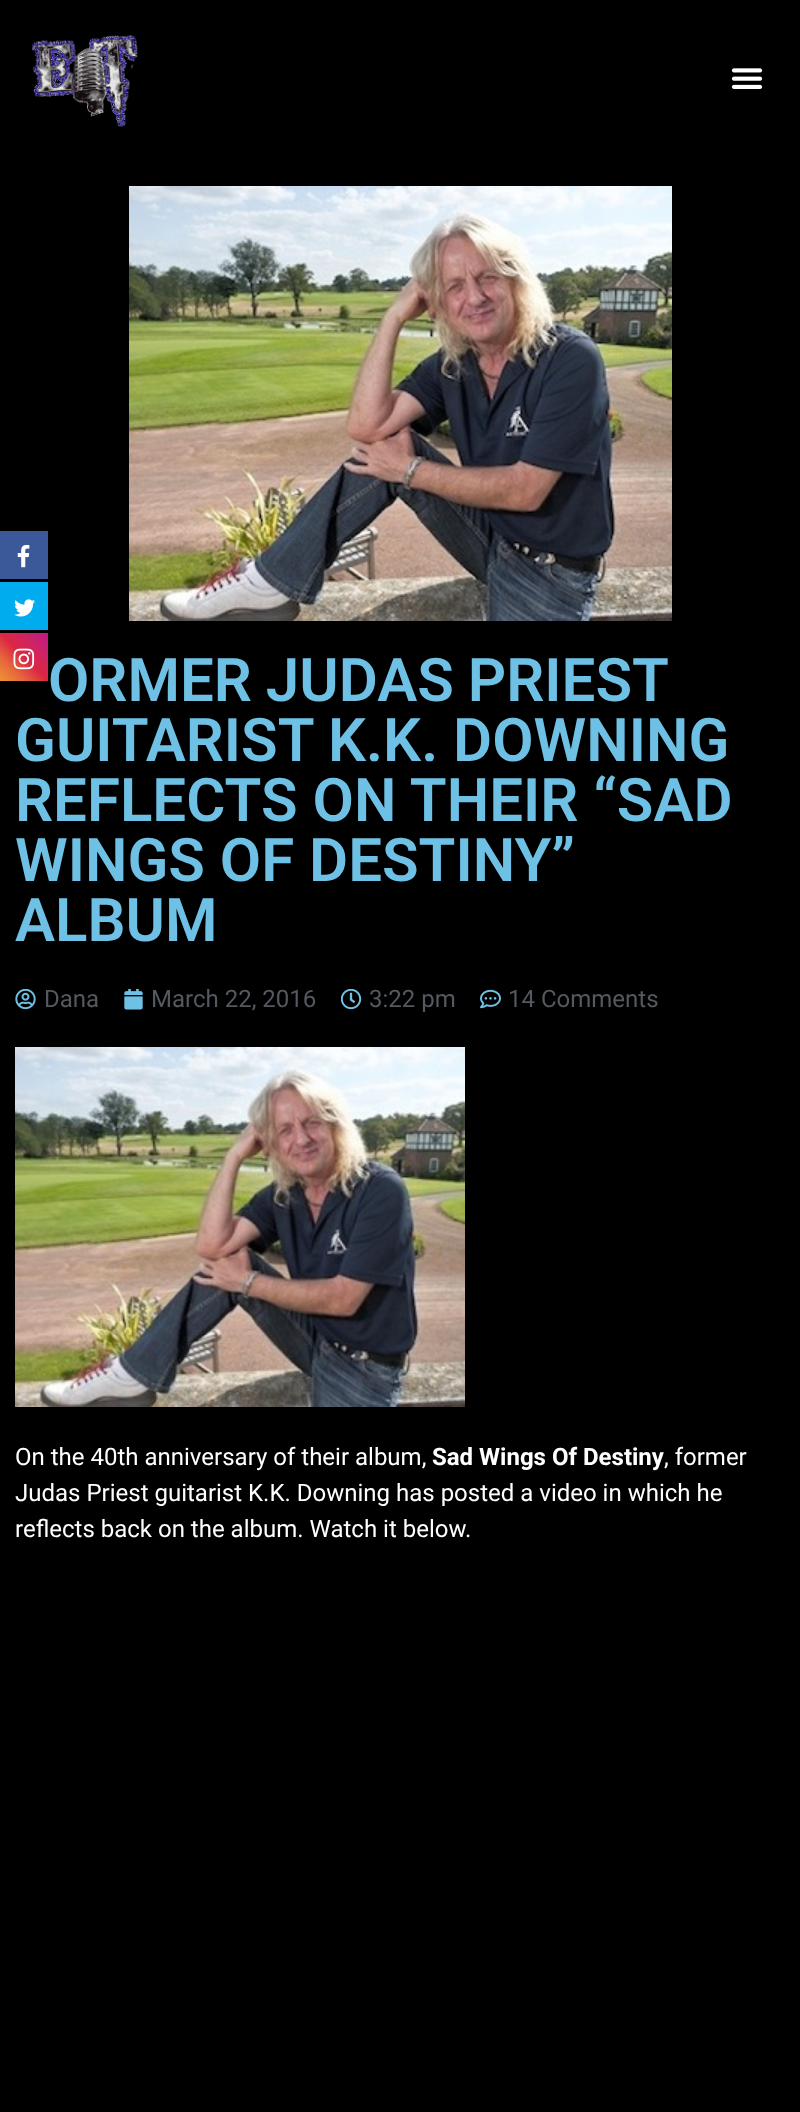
async function draw(canvas) {
  canvas.width = 800
  canvas.height = 2112
  const ctx = canvas.getContext('2d')
  ctx.miterLimit = 4
  ctx.fontKerning = 'normal'
  async function loadImage(src) {
    const img = new Image()
    img.src = src
    await img.decode()
    return img
  }
  let gradient

  ctx.fillStyle = '#000'
  ctx.fillRect(0, 0, 800, 2112)
  ctx.drawImage(await loadImage('image0.png'), 32, 34, 107, 93)
  ctx.drawImage(await loadImage('image1.png'), 731, 68, 32, 21)
  ctx.fillStyle = '#3b5998'
  ctx.fillRect(0, 531, 48, 48)
  ctx.drawImage(await loadImage('image2.png'), 17, 544, 13, 24)
  ctx.fillStyle = '#00aced'
  ctx.fillRect(0, 582, 48, 48)
  ctx.drawImage(await loadImage('image3.png'), 14, 599, 21, 18)
  gradient = ctx.createLinearGradient(0, 681, 48, 633)
  gradient.addColorStop(0, '#f09433')
  gradient.addColorStop(0.25, '#e6683c')
  gradient.addColorStop(0.5, '#dc2743')
  gradient.addColorStop(0.75, '#cc2366')
  gradient.addColorStop(1, '#bc1888')
  ctx.fillStyle = gradient
  ctx.fillRect(0, 633, 48, 48)
  ctx.drawImage(await loadImage('image4.png'), 13, 648, 22, 22)
  ctx.drawImage(await loadImage('image5.png'), 129, 186, 543, 435)
  ctx.wordSpacing = '-1px'
  ctx.font = '600 60px Roboto'
  ctx.fillStyle = '#6ec1e4'
  ctx.fillText('ORMER JUDAS PRIEST', 48, 701)
  ctx.wordSpacing = '0px'
  ctx.fillText('GUITARIST K.K. DOWNING', 15, 761)
  ctx.fillText('REFLECTS ON THEIR “SAD', 15, 821)
  ctx.fillText('WINGS OF DESTINY”', 15, 881)
  ctx.fillText('ALBUM', 15, 941)
  ctx.drawImage(await loadImage('image6.png'), 15, 989, 21, 21)
  ctx.font = '24px Roboto'
  ctx.fillStyle = '#54595f'
  ctx.fillText('Dana', 44, 1007)
  ctx.drawImage(await loadImage('image7.png'), 124, 989, 19, 21)
  ctx.fillText('March 22, 2016', 151, 1007)
  ctx.drawImage(await loadImage('image8.png'), 341, 989, 21, 21)
  ctx.fillText('3:22 pm', 369, 1007)
  ctx.drawImage(await loadImage('image9.png'), 480, 989, 21, 20)
  ctx.fillText('14 Comments', 508, 1007)
  ctx.drawImage(await loadImage('image10.png'), 15, 1047, 450, 360)
  ctx.fillStyle = '#fff'
  ctx.fillText('On the 40th anniversary of their album,', 15, 1465)
  ctx.font = 'bold 24px Roboto'
  ctx.fillText('Sad Wings Of Destiny', 432, 1465)
  ctx.font = '24px Roboto'
  ctx.fillText(', former', 664, 1465)
  ctx.fillText('Judas Priest guitarist K.K. Downing has posted a video in which he', 15, 1501)
  ctx.fillText('reflects back on the album. Watch it below.', 15, 1537)
}

draw(document.querySelector('canvas'))
